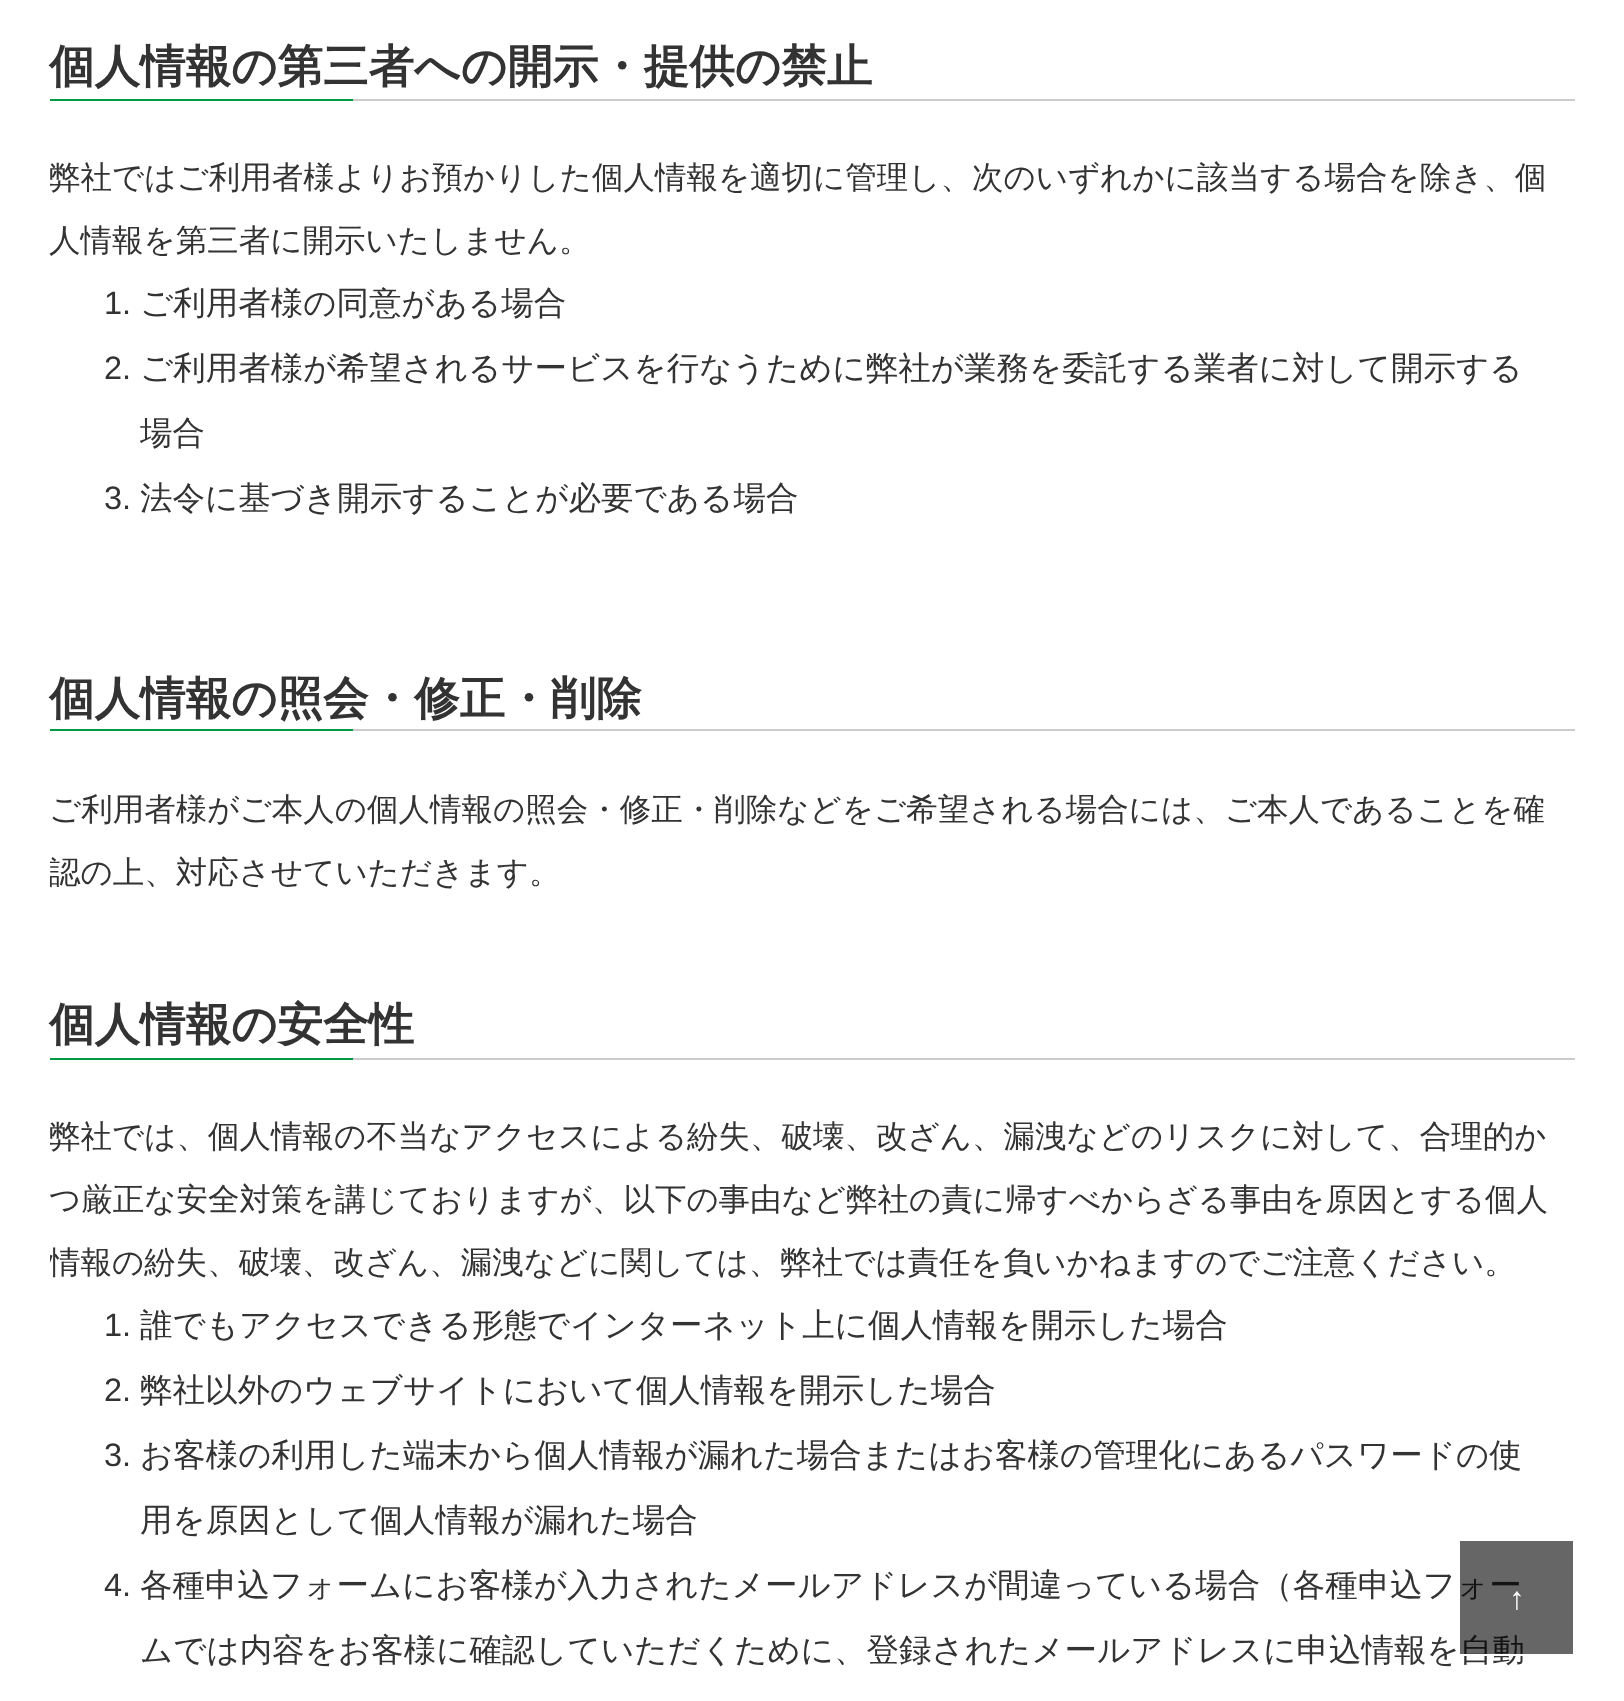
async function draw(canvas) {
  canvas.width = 1624
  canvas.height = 1701
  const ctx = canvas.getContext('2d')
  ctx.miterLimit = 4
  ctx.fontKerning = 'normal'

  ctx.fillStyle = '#fff'
  ctx.fillRect(0, 0, 1624, 1701)
  ctx.fillStyle = '#ccc'
  ctx.fillRect(353, 99, 1222, 2)
  ctx.font = 'bold 45.5px WenQuanYi Zen Hei'
  ctx.fillStyle = '#333'
  ctx.fillText('個人情報の第三者への開示・提供の禁止', 49, 82)
  ctx.fillStyle = '#094'
  ctx.fillRect(50, 99, 303, 2)
  ctx.save()
  ctx.beginPath()
  ctx.rect(50, 0, 1525, 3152)
  ctx.clip()
  ctx.font = '500 31.5px WenQuanYi Zen Hei'
  ctx.fillStyle = '#333'
  ctx.fillText('弊社ではご利用者様よりお預かりした個人情報を適切に管理し、次のいずれかに該当する場合を除き、個', 49, 188)
  ctx.restore()
  ctx.font = '500 31.5px WenQuanYi Zen Hei'
  ctx.fillStyle = '#333'
  ctx.fillText('人情報を第三者に開示いたしません。', 49, 251)
  ctx.font = '32.5px Liberation Sans'
  ctx.fillText('1.', 104, 314)
  ctx.font = '500 32.5px WenQuanYi Zen Hei'
  ctx.fillText('ご利用者様の同意がある場合', 140, 314)
  ctx.font = '32.5px Liberation Sans'
  ctx.fillText('2.', 104, 379)
  ctx.font = '500 32.5px WenQuanYi Zen Hei'
  ctx.fillText('ご利用者様が希望されるサービスを行なうために弊社が業務を委託する業者に対して開示する', 140, 379)
  ctx.fillText('場合', 140, 444)
  ctx.font = '32.5px Liberation Sans'
  ctx.fillText('3.', 104, 509)
  ctx.font = '500 32.5px WenQuanYi Zen Hei'
  ctx.fillText('法令に基づき開示することが必要である場合', 140, 509)
  ctx.fillStyle = '#ccc'
  ctx.fillRect(353, 729, 1222, 2)
  ctx.font = 'bold 45.5px WenQuanYi Zen Hei'
  ctx.fillStyle = '#333'
  ctx.fillText('個人情報の照会・修正・削除', 49, 714)
  ctx.fillStyle = '#094'
  ctx.fillRect(50, 729, 303, 2)
  ctx.font = '500 31.5px WenQuanYi Zen Hei'
  ctx.fillStyle = '#333'
  ctx.fillText('ご利用者様がご本人の個人情報の照会・修正・削除などをご希望される場合には、ご本人であることを確', 49, 820)
  ctx.save()
  ctx.beginPath()
  ctx.rect(50, 0, 1525, 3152)
  ctx.clip()
  ctx.fillText('認の上、対応させていただきます。', 49, 883)
  ctx.restore()
  ctx.fillStyle = '#ccc'
  ctx.fillRect(353, 1058, 1222, 2)
  ctx.font = 'bold 45.5px WenQuanYi Zen Hei'
  ctx.fillStyle = '#333'
  ctx.fillText('個人情報の安全性', 49, 1040)
  ctx.fillStyle = '#094'
  ctx.fillRect(50, 1058, 303, 2)
  ctx.save()
  ctx.beginPath()
  ctx.rect(50, 0, 1525, 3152)
  ctx.clip()
  ctx.font = '500 31.5px WenQuanYi Zen Hei'
  ctx.fillStyle = '#333'
  ctx.fillText('弊社では、個人情報の不当なアクセスによる紛失、破壊、改ざん、漏洩などのリスクに対して、合理的か', 49, 1147)
  ctx.restore()
  ctx.font = '500 31.5px WenQuanYi Zen Hei'
  ctx.fillStyle = '#333'
  ctx.fillText('つ厳正な安全対策を講じておりますが、以下の事由など弊社の責に帰すべからざる事由を原因とする個人', 49, 1210)
  ctx.save()
  ctx.beginPath()
  ctx.rect(50, 0, 1525, 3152)
  ctx.clip()
  ctx.fillText('情報の紛失、破壊、改ざん、漏洩などに関しては、弊社では責任を負いかねますのでご注意ください。', 49, 1273)
  ctx.restore()
  ctx.font = '32.5px Liberation Sans'
  ctx.fillText('1.', 104, 1336)
  ctx.font = '500 32.5px WenQuanYi Zen Hei'
  ctx.fillText('誰でもアクセスできる形態でインターネット上に個人情報を開示した場合', 140, 1336)
  ctx.font = '32.5px Liberation Sans'
  ctx.fillText('2.', 104, 1401)
  ctx.font = '500 32.5px WenQuanYi Zen Hei'
  ctx.fillText('弊社以外のウェブサイトにおいて個人情報を開示した場合', 140, 1401)
  ctx.font = '32.5px Liberation Sans'
  ctx.fillText('3.', 104, 1466)
  ctx.font = '500 32.5px WenQuanYi Zen Hei'
  ctx.fillText('お客様の利用した端末から個人情報が漏れた場合またはお客様の管理化にあるパスワードの使', 140, 1466)
  ctx.fillText('用を原因として個人情報が漏れた場合', 140, 1531)
  ctx.font = '32.5px Liberation Sans'
  ctx.fillText('4.', 104, 1596)
  ctx.font = '500 32.5px WenQuanYi Zen Hei'
  ctx.fillText('各種申込フォームにお客様が入力されたメールアドレスが間違っている場合（各種申込フォー', 140, 1596)
  ctx.fillText('ムでは内容をお客様に確認していただくために、登録されたメールアドレスに申込情報を自動', 140, 1661)
  ctx.fillStyle = '#00000099'
  ctx.beginPath()
  ctx.rect(1459, 1540, 115, 115)
  ctx.fill()
  ctx.strokeStyle = '#fff'
  ctx.lineWidth = 2
  ctx.stroke()
  ctx.font = '31.5px Liberation Sans'
  ctx.fillStyle = '#fff'
  ctx.fillText('↑', 1509, 1609)
}

draw(document.querySelector('canvas'))
